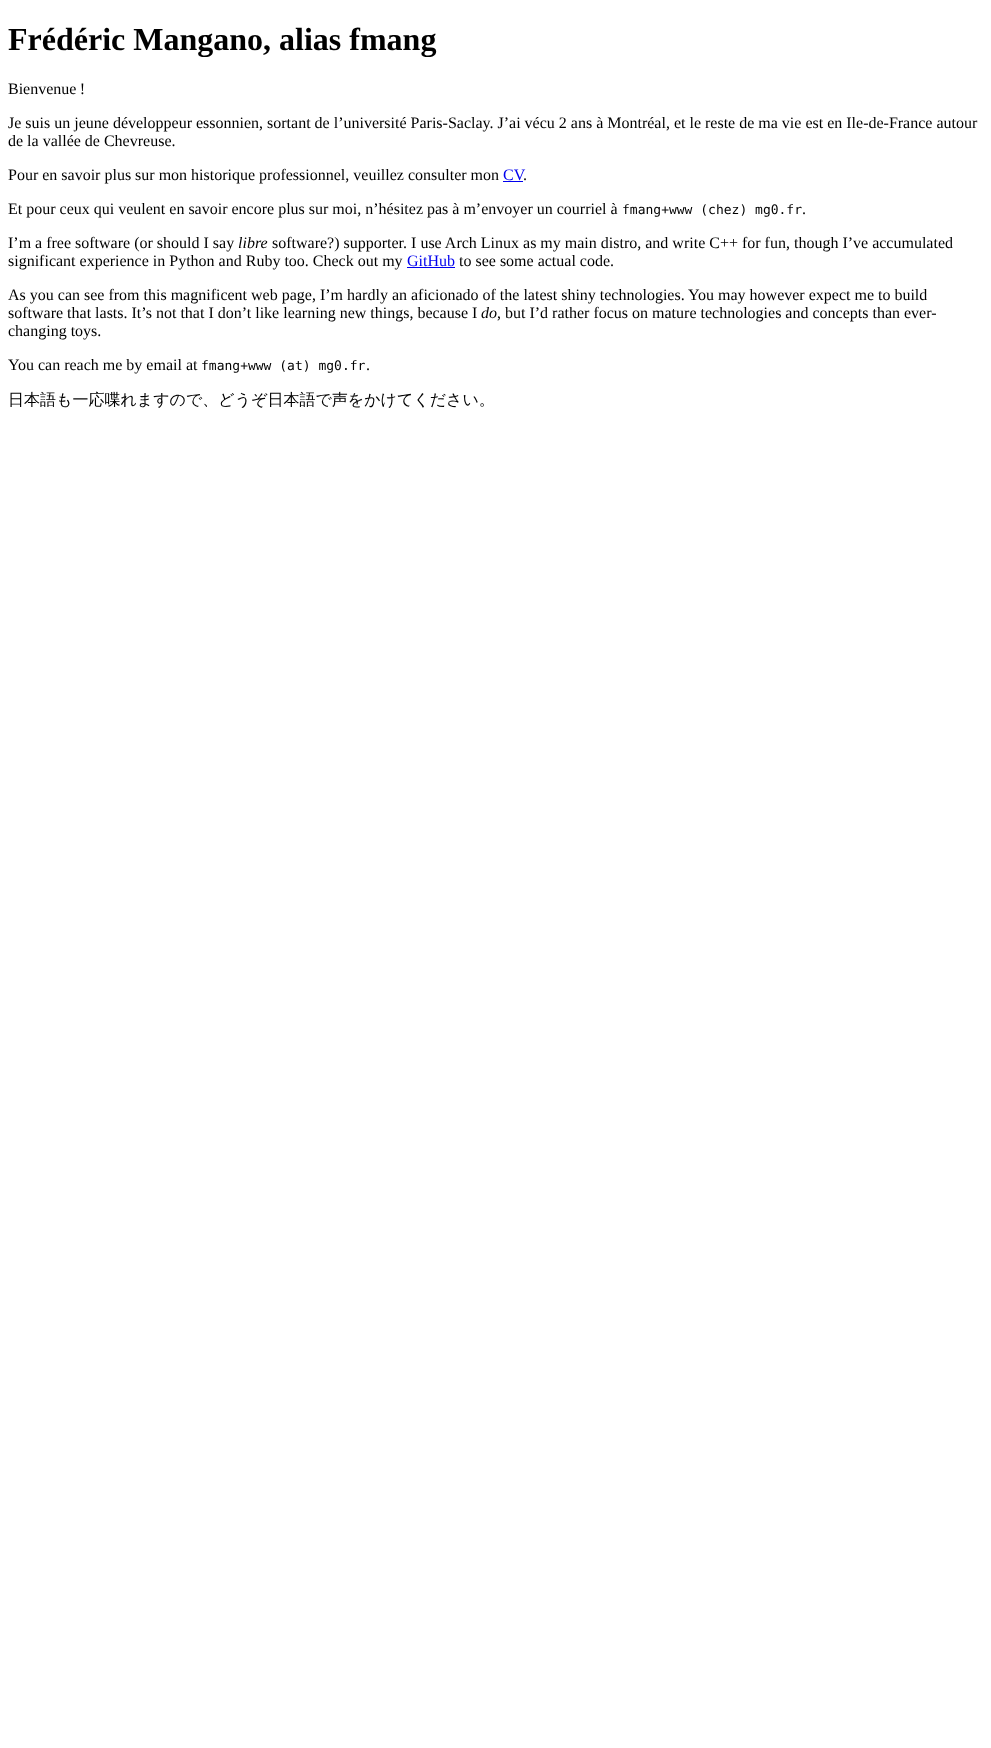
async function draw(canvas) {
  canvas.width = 991
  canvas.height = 1748
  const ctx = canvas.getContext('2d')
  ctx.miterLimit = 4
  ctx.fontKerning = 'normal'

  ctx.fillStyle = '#fff'
  ctx.fillRect(0, 0, 991, 1748)
  ctx.font = 'bold 32px Liberation Serif'
  ctx.fillStyle = '#000'
  ctx.fillText('Frédéric Mangano, alias fmang', 8, 50)
  ctx.font = '16px Liberation Serif'
  ctx.fillText('Bienvenue !', 8, 94)
  ctx.fillText('Je suis un jeune développeur essonnien, sortant de l’université Paris-Saclay. J’ai vécu 2 ans à Montréal, et le reste de ma vie est en Ile-de-France autour', 8, 128)
  ctx.fillText('de la vallée de Chevreuse.', 8, 146)
  ctx.fillText('Pour en savoir plus sur mon historique professionnel, veuillez consulter mon', 8, 180)
  ctx.fillStyle = '#00e'
  ctx.fillText('CV', 503, 180)
  ctx.fillRect(503, 181, 20, 1)
  ctx.fillStyle = '#000'
  ctx.fillText('.', 523, 180)
  ctx.fillText('Et pour ceux qui veulent en savoir encore plus sur moi, n’hésitez pas à m’envoyer un courriel à', 8, 214)
  ctx.font = '13px DejaVu Sans Mono'
  ctx.fillText('fmang+www (chez) mg0.fr', 622, 214)
  ctx.font = '16px Liberation Serif'
  ctx.fillText('.', 802, 214)
  ctx.fillText('I’m a free software (or should I say', 8, 248)
  ctx.font = 'italic 16px Liberation Serif'
  ctx.fillText('libre', 238, 248)
  ctx.font = '16px Liberation Serif'
  ctx.fillText('software?) supporter. I use Arch Linux as my main distro, and write C++ for fun, though I’ve accumulated', 272, 248)
  ctx.fillText('significant experience in Python and Ruby too. Check out my', 8, 266)
  ctx.fillStyle = '#00e'
  ctx.fillText('GitHub', 407, 266)
  ctx.fillRect(407, 267, 48, 1)
  ctx.fillStyle = '#000'
  ctx.fillText('to see some actual code.', 459, 266)
  ctx.fillText('As you can see from this magnificent web page, I’m hardly an aficionado of the latest shiny technologies. You may however expect me to build', 8, 300)
  ctx.fillText('software that lasts. It’s not that I don’t like learning new things, because I', 8, 318)
  ctx.font = 'italic 16px Liberation Serif'
  ctx.fillText('do', 481, 318)
  ctx.font = '16px Liberation Serif'
  ctx.fillText(', but I’d rather focus on mature technologies and concepts than ever-', 497, 318)
  ctx.fillText('changing toys.', 8, 336)
  ctx.fillText('You can reach me by email at', 8, 370)
  ctx.font = '13px DejaVu Sans Mono'
  ctx.fillText('fmang+www (at) mg0.fr', 201, 370)
  ctx.font = '16px Liberation Serif'
  ctx.fillText('.', 366, 370)
  ctx.font = '500 16px WenQuanYi Zen Hei'
  ctx.fillText('日本語も一応喋れますので、どうぞ日本語で声をかけてください。', 8, 405)
}

draw(document.querySelector('canvas'))
